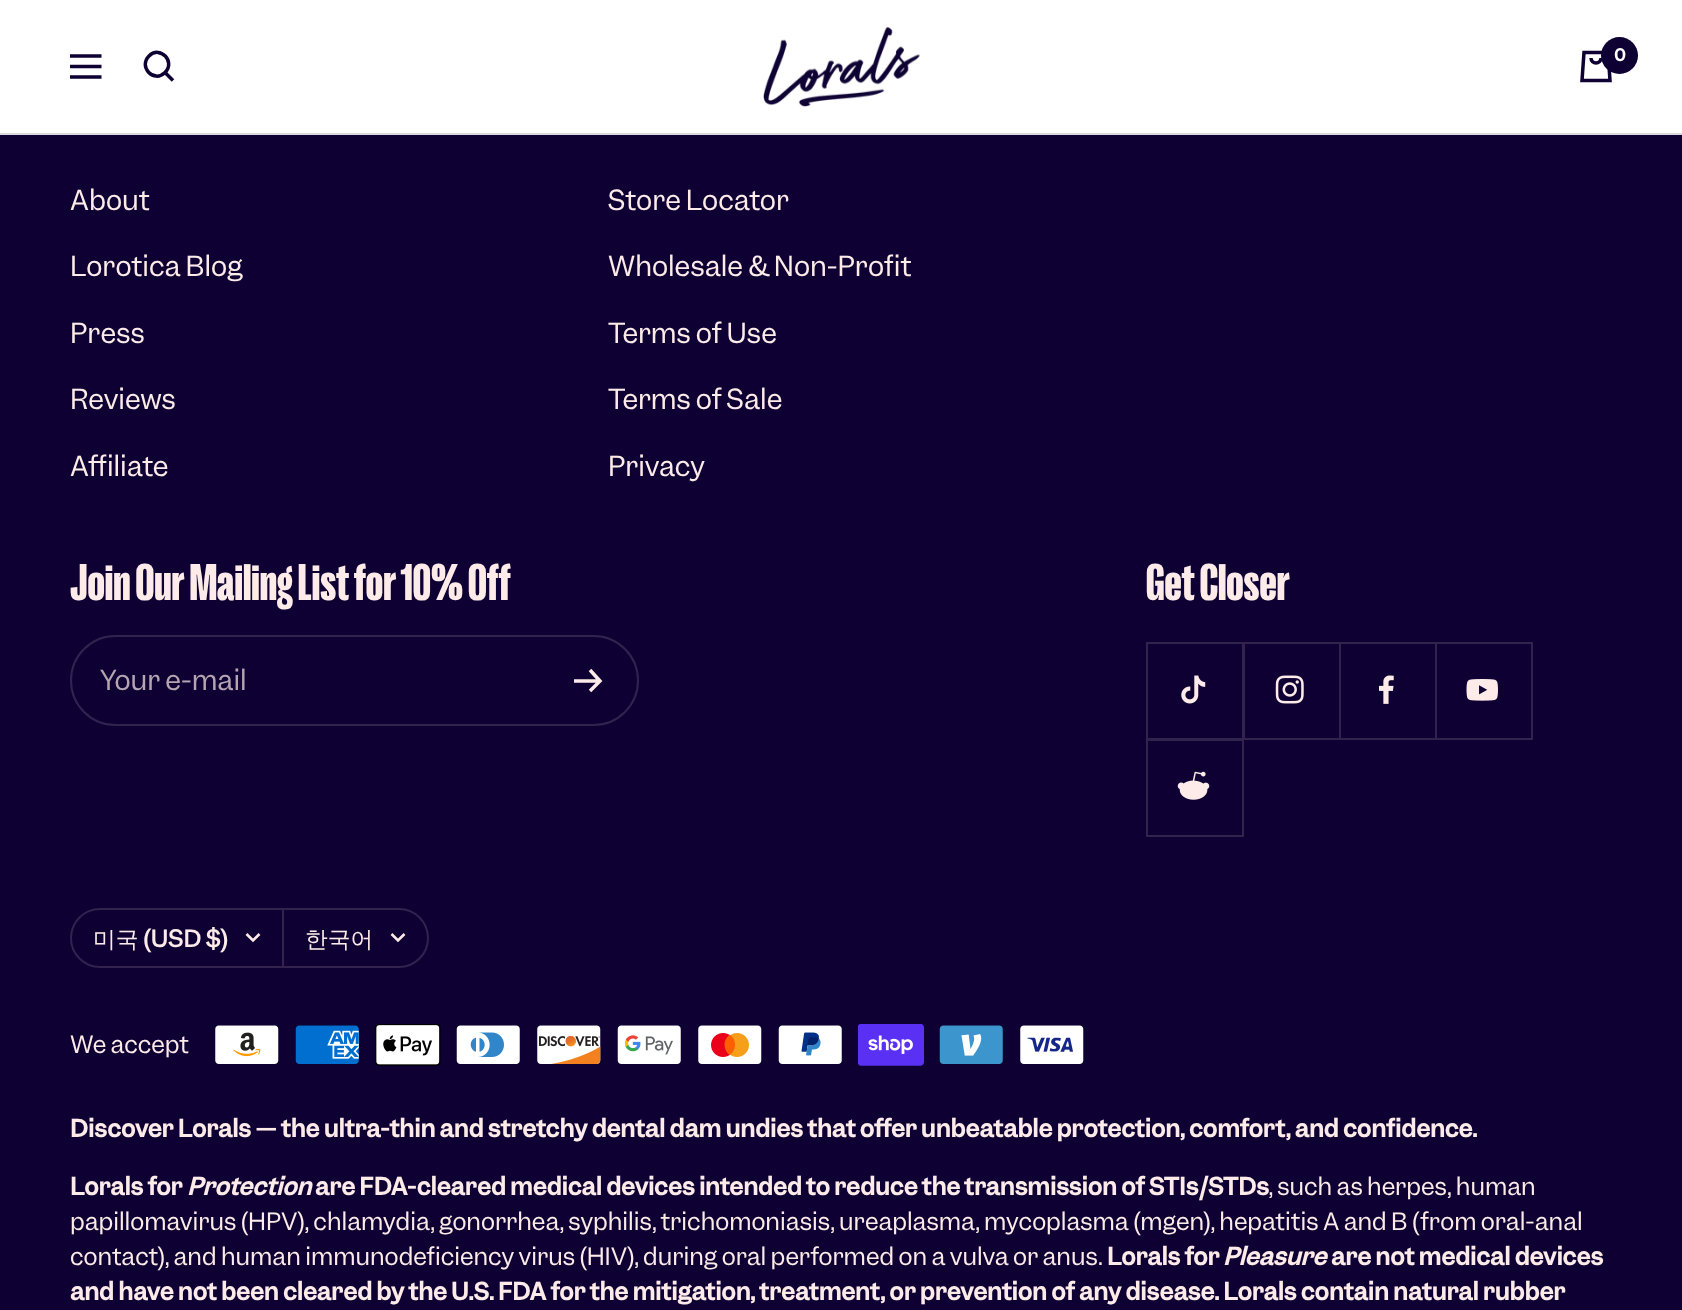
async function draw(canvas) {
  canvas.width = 1682
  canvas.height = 1310
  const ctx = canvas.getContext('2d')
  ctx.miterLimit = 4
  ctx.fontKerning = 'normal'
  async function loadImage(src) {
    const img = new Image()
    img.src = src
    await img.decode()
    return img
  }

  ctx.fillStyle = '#0e0033'
  ctx.fillRect(0, 0, 1682, 1310)
  ctx.fillStyle = '#dbd9e0'
  ctx.beginPath()
  ctx.moveTo(0, 133)
  ctx.lineTo(0, 135)
  ctx.lineTo(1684, 135)
  ctx.lineTo(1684, 2)
  ctx.lineTo(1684, 133)
  ctx.closePath()
  ctx.fill()
  ctx.fillStyle = '#fff'
  ctx.fillRect(0, 0, 1682, 133)
  ctx.beginPath()
  ctx.moveTo(70, 56)
  ctx.lineTo(101.5, 56)
  ctx.moveTo(70, 77)
  ctx.lineTo(101.5, 77)
  ctx.closePath()
  ctx.moveTo(70, 66.5)
  ctx.lineTo(101.5, 66.5)
  ctx.closePath()
  ctx.strokeStyle = '#0e0033'
  ctx.lineWidth = 3.5
  ctx.stroke()
  ctx.beginPath()
  ctx.moveTo(165, 72.5)
  ctx.bezierCurveTo(176, 61.5, 160, 45, 149, 56)
  ctx.bezierCurveTo(138, 67, 154, 83.5, 165, 72.5)
  ctx.closePath()
  ctx.moveTo(165, 72.5)
  ctx.lineTo(173, 80.5)
  ctx.stroke()
  ctx.drawImage(await loadImage('image0.png'), 763, 26, 157, 81)
  ctx.beginPath()
  ctx.moveTo(1584, 52.5)
  ctx.lineTo(1608, 52.5)
  ctx.lineTo(1610, 80.5)
  ctx.lineTo(1582, 80.5)
  ctx.closePath()
  ctx.moveTo(1591, 58)
  ctx.bezierCurveTo(1591, 64.5, 1601, 64.5, 1601, 58)
  ctx.stroke()
  ctx.fillStyle = '#0e0033'
  ctx.beginPath()
  ctx.arc(1619.5, 55.5, 18.5, 0, 2 * Math.PI)
  ctx.fill()
  ctx.font = 'bold 16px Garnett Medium'
  ctx.fillStyle = '#fff'
  ctx.fillText('0', 1614, 61)
  ctx.font = '26.25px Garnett'
  ctx.fillStyle = '#fcebe8'
  ctx.fillText('About', 70, 210)
  ctx.fillText('Lorotica Blog', 70, 276)
  ctx.fillText('Press', 70, 343)
  ctx.fillText('Reviews', 70, 409)
  ctx.fillText('Affiliate', 70, 476)
  ctx.fillText('Store Locator', 608, 210)
  ctx.fillText('Wholesale & Non-Profit', 608, 276)
  ctx.fillText('Terms of Use', 608, 343)
  ctx.fillText('Terms of Sale', 608, 409)
  ctx.fillText('Privacy', 608, 476)
  ctx.font = '900 52.5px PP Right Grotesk'
  ctx.fillText('Join Our Mailing List for 10% Off', 70, 600)
  ctx.beginPath()
  ctx.roundRect(71, 636, 567, 89, 44.5)
  ctx.strokeStyle = '#32234e'
  ctx.lineWidth = 2
  ctx.stroke()
  ctx.font = '26.25px Garnett'
  ctx.fillStyle = '#b5a5b2'
  ctx.fillText('Your e-mail', 100, 690)
  ctx.beginPath()
  ctx.moveTo(574, 681)
  ctx.lineTo(600, 681)
  ctx.moveTo(590, 670)
  ctx.lineTo(600, 681)
  ctx.lineTo(590, 691)
  ctx.strokeStyle = '#fcebe8'
  ctx.lineWidth = 3.5
  ctx.stroke()
  ctx.font = '900 52.5px PP Right Grotesk'
  ctx.fillStyle = '#fcebe8'
  ctx.fillText('Get Closer', 1146, 600)
  ctx.fillStyle = '#32234e'
  ctx.beginPath()
  ctx.moveTo(1148, 738)
  ctx.lineTo(1148, 740)
  ctx.lineTo(1244, 740)
  ctx.lineTo(1244, 644)
  ctx.lineTo(1242, 644)
  ctx.lineTo(1242, 738)
  ctx.closePath()
  ctx.fill()
  ctx.beginPath()
  ctx.moveTo(1148, 642)
  ctx.lineTo(1242, 642)
  ctx.lineTo(1242, 738)
  ctx.lineTo(1148, 738)
  ctx.lineTo(1148, 739)
  ctx.lineTo(1244, 739)
  ctx.lineTo(1244, 642)
  ctx.closePath()
  ctx.fill()
  ctx.fillRect(1146, 642, 97, 2)
  ctx.fillRect(1146, 642, 2, 97)
  ctx.drawImage(await loadImage('image1.png'), 1181, 675, 25, 29)
  ctx.beginPath()
  ctx.moveTo(1244, 738)
  ctx.lineTo(1244, 740)
  ctx.lineTo(1341, 740)
  ctx.lineTo(1341, 644)
  ctx.lineTo(1339, 644)
  ctx.lineTo(1339, 738)
  ctx.closePath()
  ctx.fill()
  ctx.beginPath()
  ctx.moveTo(1244, 642)
  ctx.lineTo(1339, 642)
  ctx.lineTo(1339, 738)
  ctx.lineTo(1244, 738)
  ctx.lineTo(1244, 739)
  ctx.lineTo(1341, 739)
  ctx.lineTo(1341, 642)
  ctx.closePath()
  ctx.fill()
  ctx.fillRect(1243, 642, 96, 2)
  ctx.fillRect(1244, 642, 1, 97)
  ctx.drawImage(await loadImage('image2.png'), 1275, 675, 29, 29)
  ctx.beginPath()
  ctx.moveTo(1341, 738)
  ctx.lineTo(1341, 740)
  ctx.lineTo(1437, 740)
  ctx.lineTo(1437, 644)
  ctx.lineTo(1435, 644)
  ctx.lineTo(1435, 738)
  ctx.closePath()
  ctx.fill()
  ctx.beginPath()
  ctx.moveTo(1341, 642)
  ctx.lineTo(1435, 642)
  ctx.lineTo(1435, 738)
  ctx.lineTo(1341, 738)
  ctx.lineTo(1341, 739)
  ctx.lineTo(1437, 739)
  ctx.lineTo(1437, 642)
  ctx.closePath()
  ctx.fill()
  ctx.fillRect(1339, 642, 96, 2)
  ctx.drawImage(await loadImage('image3.png'), 1379, 675, 15, 29)
  ctx.beginPath()
  ctx.moveTo(1437, 738)
  ctx.lineTo(1437, 740)
  ctx.lineTo(1533, 740)
  ctx.lineTo(1533, 644)
  ctx.lineTo(1531, 644)
  ctx.lineTo(1531, 738)
  ctx.closePath()
  ctx.fill()
  ctx.beginPath()
  ctx.moveTo(1437, 642)
  ctx.lineTo(1531, 642)
  ctx.lineTo(1531, 738)
  ctx.lineTo(1437, 738)
  ctx.lineTo(1437, 739)
  ctx.lineTo(1533, 739)
  ctx.lineTo(1533, 642)
  ctx.closePath()
  ctx.fill()
  ctx.fillRect(1435, 642, 96, 2)
  ctx.drawImage(await loadImage('image4.png'), 1466, 679, 32, 22)
  ctx.beginPath()
  ctx.moveTo(1148, 835)
  ctx.lineTo(1148, 837)
  ctx.lineTo(1244, 837)
  ctx.lineTo(1244, 740)
  ctx.lineTo(1242, 740)
  ctx.lineTo(1242, 835)
  ctx.closePath()
  ctx.fill()
  ctx.beginPath()
  ctx.moveTo(1146, 740)
  ctx.lineTo(1146, 837)
  ctx.lineTo(1243, 837)
  ctx.lineTo(1243, 740)
  ctx.lineTo(1242, 740)
  ctx.lineTo(1242, 835)
  ctx.lineTo(1146, 835)
  ctx.closePath()
  ctx.fill()
  ctx.fillRect(1146, 739, 97, 2)
  ctx.fillRect(1146, 739, 2, 96)
  ctx.drawImage(await loadImage('image5.png'), 1177, 771, 33, 29)
  ctx.beginPath()
  ctx.roundRect(71, 909, 212, 58, [29, 0, 0, 29])
  ctx.strokeStyle = '#32234e'
  ctx.lineWidth = 2
  ctx.stroke()
  ctx.font = '500 22.75px WenQuanYi Zen Hei'
  ctx.fillStyle = '#fcebe8'
  ctx.fillText('미국', 93, 947)
  ctx.font = '500 22.75px Garnett Medium'
  ctx.fillText('(USD $)', 143, 947)
  ctx.beginPath()
  ctx.moveTo(246.5, 934)
  ctx.lineTo(253, 940.5)
  ctx.lineTo(259.5, 934)
  ctx.strokeStyle = '#fcebe8'
  ctx.lineWidth = 2.6
  ctx.stroke()
  ctx.beginPath()
  ctx.roundRect(283, 909, 145, 58, [0, 29, 29, 0])
  ctx.strokeStyle = '#32234e'
  ctx.lineWidth = 2
  ctx.stroke()
  ctx.font = '500 22.75px WenQuanYi Zen Hei'
  ctx.fillText('한국어', 305, 947)
  ctx.beginPath()
  ctx.moveTo(391.5, 934)
  ctx.lineTo(398, 940.5)
  ctx.lineTo(404.5, 934)
  ctx.strokeStyle = '#fcebe8'
  ctx.lineWidth = 2.6
  ctx.stroke()
  ctx.font = '22.75px Garnett'
  ctx.fillText('We accept', 70, 1053)
  ctx.drawImage(await loadImage('image6.png'), 215, 1025, 64, 39)
  ctx.drawImage(await loadImage('image7.png'), 295, 1025, 64, 39)
  ctx.drawImage(await loadImage('image8.png'), 375, 1024, 66, 42)
  ctx.drawImage(await loadImage('image9.png'), 456, 1025, 64, 39)
  ctx.drawImage(await loadImage('image10.png'), 537, 1025, 64, 39)
  ctx.drawImage(await loadImage('image11.png'), 617, 1025, 64, 39)
  ctx.drawImage(await loadImage('image12.png'), 698, 1025, 64, 39)
  ctx.drawImage(await loadImage('image13.png'), 778, 1025, 64, 39)
  ctx.drawImage(await loadImage('image14.png'), 858, 1024, 66, 42)
  ctx.drawImage(await loadImage('image15.png'), 939, 1025, 64, 39)
  ctx.drawImage(await loadImage('image16.png'), 1020, 1025, 64, 39)
  ctx.font = 'bold 22.75px Garnett Medium'
  ctx.fillText('Discover Lorals — the ultra-thin and stretchy dental dam undies that offer unbeatable protection, comfort, and confidence.', 70, 1137)
  ctx.fillText('Lorals for', 70, 1195)
  ctx.font = 'italic bold 22.75px Garnett Medium'
  ctx.fillText('Protection', 187, 1195)
  ctx.font = 'bold 22.75px Garnett Medium'
  ctx.fillText('are FDA-cleared medical devices intended to reduce the transmission of STIs/STDs', 315, 1195)
  ctx.font = '22.75px Garnett'
  ctx.fillText(', such as herpes, human', 1269, 1195)
  ctx.fillText('papillomavirus (HPV), chlamydia, gonorrhea, syphilis, trichomoniasis, ureaplasma, mycoplasma (mgen), hepatitis A and B (from oral-anal', 70, 1230)
  ctx.fillText('contact), and human immunodeficiency virus (HIV), during oral performed on a vulva or anus.', 70, 1265)
  ctx.font = 'bold 22.75px Garnett Medium'
  ctx.fillText('Lorals for', 1107, 1265)
  ctx.font = 'italic bold 22.75px Garnett Medium'
  ctx.fillText('Pleasure', 1223, 1265)
  ctx.font = 'bold 22.75px Garnett Medium'
  ctx.fillText('are not medical devices', 1331, 1265)
  ctx.fillText('and have not been cleared by the U.S. FDA for the mitigation, treatment, or prevention of any disease. Lorals contain natural rubber', 70, 1300)
}

draw(document.querySelector('canvas'))
